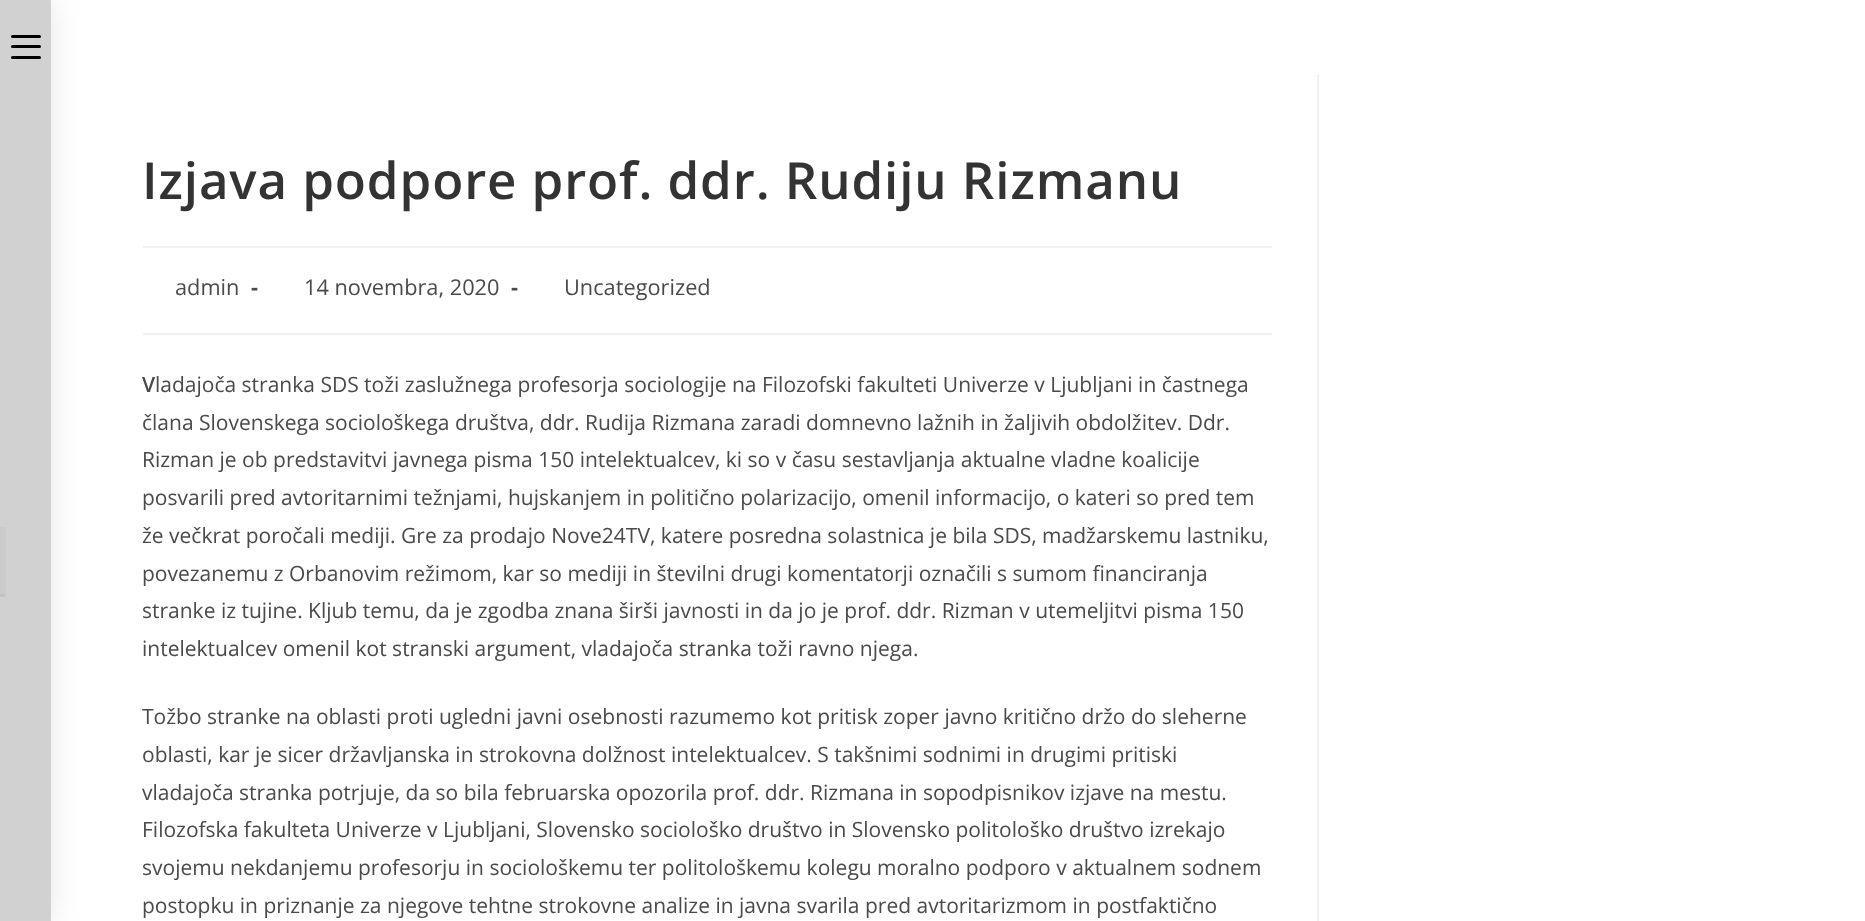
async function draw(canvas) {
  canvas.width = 1865
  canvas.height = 921
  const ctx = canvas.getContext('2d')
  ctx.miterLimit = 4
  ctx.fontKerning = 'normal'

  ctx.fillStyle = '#fff'
  ctx.fillRect(0, 0, 1865, 921)
  ctx.fillStyle = '#0000001a'
  ctx.filter = 'blur(15px)'
  ctx.beginPath()
  ctx.rect(-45, 0, 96, 921)
  ctx.fill()
  ctx.filter = 'none'
  ctx.fillStyle = '#d1d1d1'
  ctx.fillRect(0, 0, 51, 921)
  ctx.fillStyle = '#000'
  ctx.beginPath()
  ctx.roundRect(11, 45, 30, 3, 1.5)
  ctx.fill()
  ctx.beginPath()
  ctx.roundRect(11, 35, 30, 3, 1.5)
  ctx.fill()
  ctx.beginPath()
  ctx.roundRect(11, 56, 30, 3, 1.5)
  ctx.fill()
  ctx.fillStyle = '#cbcbcb'
  ctx.fillRect(0, 527, 6, 70)
  ctx.fillStyle = '#c3c3c3'
  ctx.fillRect(0, 594, 5, 3)
  ctx.fillStyle = '#f1f1f1'
  ctx.fillRect(1317, 75, 2, 846)
  ctx.fillRect(143, 246, 1129, 2)
  ctx.letterSpacing = '0.9px'
  ctx.font = '600 51px Open Sans'
  ctx.fillStyle = '#333'
  ctx.fillText('Izjava podpore prof. ddr. Rudiju Rizmanu', 142, 199)
  ctx.fillStyle = '#f1f1f1'
  ctx.fillRect(143, 333, 1129, 2)
  ctx.letterSpacing = '0px'
  ctx.font = '21.75px Open Sans'
  ctx.fillStyle = '#4a4a4a'
  ctx.fillText('admin', 175, 295)
  ctx.font = 'bold 21.75px Open Sans'
  ctx.fillText('-', 251, 295)
  ctx.font = '21.75px Open Sans'
  ctx.fillText('14 novembra, 2020', 304, 295)
  ctx.font = 'bold 21.75px Open Sans'
  ctx.fillText('-', 511, 295)
  ctx.font = '21.75px Open Sans'
  ctx.fillText('Uncategorized', 564, 295)
  ctx.font = '600 21px Open Sans'
  ctx.fillText('V', 142, 392)
  ctx.font = '21px Open Sans'
  ctx.fillText('ladajoča stranka SDS toži zaslužnega profesorja sociologije na Filozofski fakulteti Univerze v Ljubljani in častnega', 155, 392)
  ctx.fillText('člana Slovenskega sociološkega društva, ddr. Rudija Rizmana zaradi domnevno lažnih in žaljivih obdolžitev. Ddr.', 142, 430)
  ctx.fillText('Rizman je ob predstavitvi javnega pisma 150 intelektualcev, ki so v času sestavljanja aktualne vladne koalicije', 142, 467)
  ctx.fillText('posvarili pred avtoritarnimi težnjami, hujskanjem in politično polarizacijo, omenil informacijo, o kateri so pred tem', 142, 505)
  ctx.fillText('že večkrat poročali mediji. Gre za prodajo Nove24TV, katere posredna solastnica je bila SDS, madžarskemu lastniku,', 142, 543)
  ctx.fillText('povezanemu z Orbanovim režimom, kar so mediji in številni drugi komentatorji označili s sumom financiranja', 142, 581)
  ctx.fillText('stranke iz tujine. Kljub temu, da je zgodba znana širši javnosti in da jo je prof. ddr. Rizman v utemeljitvi pisma 150', 142, 618)
  ctx.fillText('intelektualcev omenil kot stranski argument, vladajoča stranka toži ravno njega.', 142, 656)
  ctx.fillText('Tožbo stranke na oblasti proti ugledni javni osebnosti razumemo kot pritisk zoper javno kritično držo do sleherne', 142, 724)
  ctx.fillText('oblasti, kar je sicer državljanska in strokovna dolžnost intelektualcev. S takšnimi sodnimi in drugimi pritiski', 142, 762)
  ctx.fillText('vladajoča stranka potrjuje, da so bila februarska opozorila prof. ddr. Rizmana in sopodpisnikov izjave na mestu.', 142, 800)
  ctx.fillText('Filozofska fakulteta Univerze v Ljubljani, Slovensko sociološko društvo in Slovensko politološko društvo izrekajo', 142, 837)
  ctx.fillText('svojemu nekdanjemu profesorju in sociološkemu ter politološkemu kolegu moralno podporo v aktualnem sodnem', 142, 875)
  ctx.fillText('postopku in priznanje za njegove tehtne strokovne analize in javna svarila pred avtoritarizmom in postfaktično', 142, 913)
}

draw(document.querySelector('canvas'))
